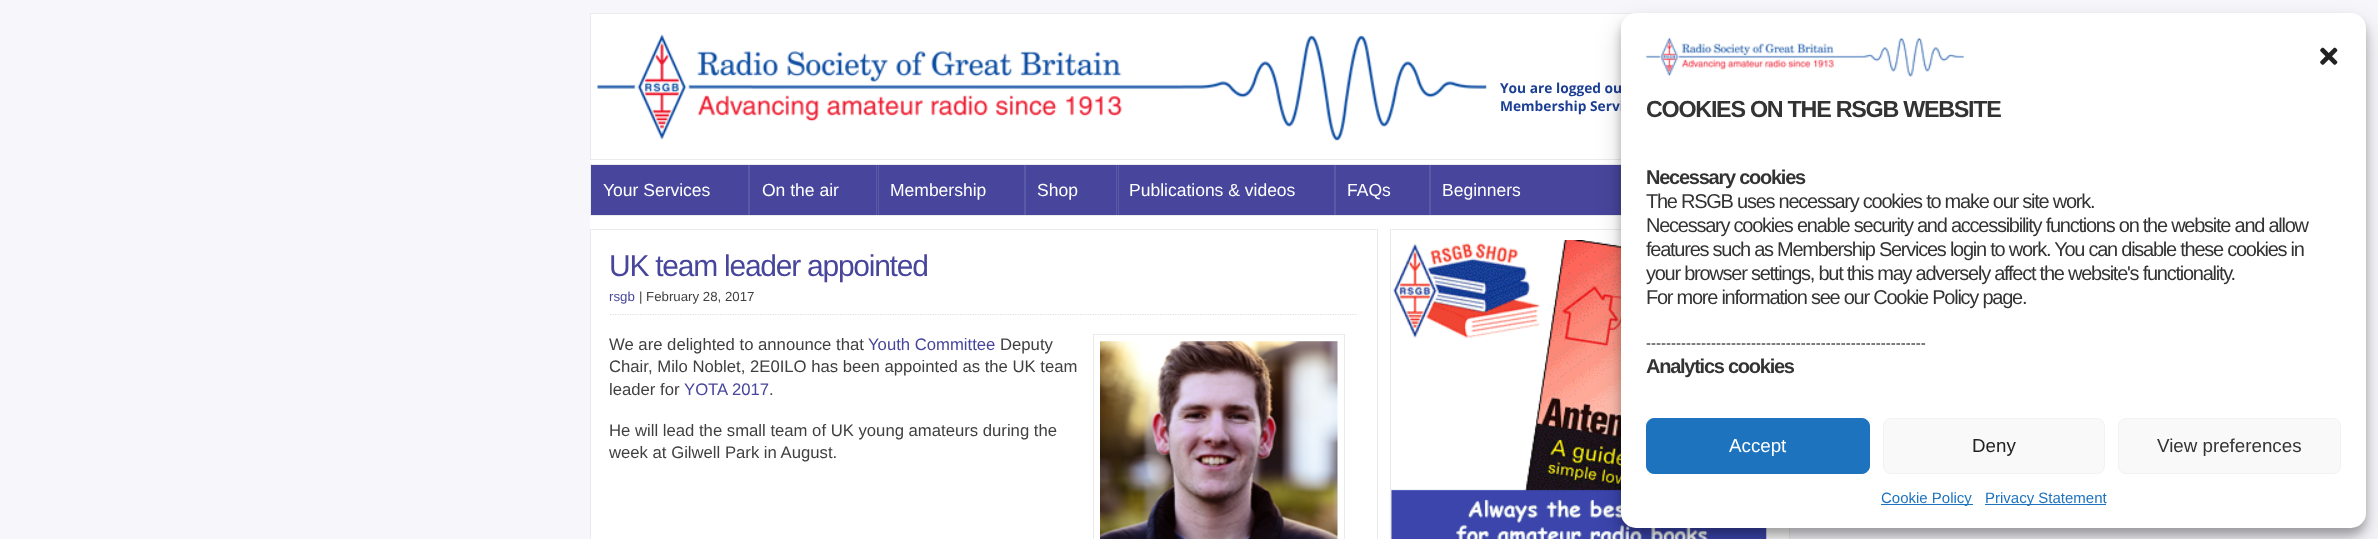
async function draw(canvas) {
  canvas.width = 2378
  canvas.height = 539
  const ctx = canvas.getContext('2d')
  ctx.miterLimit = 4
  ctx.fontKerning = 'normal'
  async function loadImage(src) {
    const img = new Image()
    img.src = src
    await img.decode()
    return img
  }

  ctx.fillStyle = '#f7f7fb'
  ctx.fillRect(0, 0, 2378, 539)
  ctx.fillStyle = '#fff'
  ctx.fillRect(590, 14, 1199, 525)
  ctx.strokeStyle = '#ebebeb'
  ctx.strokeRect(590.5, 13.5, 1199, 146)
  ctx.drawImage(await loadImage('image0.png'), 597, 34, 890, 107)
  ctx.drawImage(await loadImage('image1.png'), 1500, 82, 121, 33)
  ctx.strokeRect(590.5, 164.5, 1199, 51)
  ctx.fillStyle = '#47469c'
  ctx.fillRect(591, 165, 1030, 50)
  ctx.font = '17.5px Liberation Sans'
  ctx.fillStyle = '#fff'
  ctx.fillText('Your Services', 603, 196)
  ctx.fillStyle = '#5959a6'
  ctx.fillRect(748, 165, 2, 50)
  ctx.fillStyle = '#fff'
  ctx.fillText('On the air', 762, 196)
  ctx.fillStyle = '#5959a6'
  ctx.fillRect(878, 165, 1, 50)
  ctx.fillRect(876, 165, 1, 50)
  ctx.fillStyle = '#fff'
  ctx.fillText('Membership', 890, 196)
  ctx.fillStyle = '#5959a6'
  ctx.fillRect(1024, 165, 2, 50)
  ctx.fillStyle = '#fff'
  ctx.fillText('Shop', 1037, 196)
  ctx.fillStyle = '#5959a6'
  ctx.fillRect(1118, 165, 1, 50)
  ctx.fillRect(1116, 165, 1, 50)
  ctx.fillStyle = '#fff'
  ctx.fillText('Publications & videos', 1129, 196)
  ctx.fillStyle = '#5959a6'
  ctx.fillRect(1334, 165, 2, 50)
  ctx.fillStyle = '#fff'
  ctx.fillText('FAQs', 1347, 196)
  ctx.fillStyle = '#5959a6'
  ctx.fillRect(1429, 165, 2, 50)
  ctx.fillStyle = '#fff'
  ctx.fillText('Beginners', 1442, 196)
  ctx.strokeRect(590.5, 229.5, 787, 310)
  ctx.letterSpacing = '-1.25px'
  ctx.font = '30px Liberation Sans'
  ctx.fillStyle = '#47469c'
  ctx.fillText('UK team leader appointed', 609, 276)
  ctx.beginPath()
  ctx.moveTo(610, 314.5)
  ctx.lineTo(1357.5, 314.5)
  ctx.strokeStyle = '#ddd'
  ctx.lineWidth = 1.2
  ctx.setLineDash([1.25, 1.25])
  ctx.stroke()
  ctx.letterSpacing = '0px'
  ctx.font = '13.25px Liberation Sans'
  ctx.fillText('rsgb', 609, 301)
  ctx.fillStyle = '#404040'
  ctx.fillText('| February 28, 2017', 639, 301)
  ctx.font = '16.7px Liberation Sans'
  ctx.fillText('We are delighted to announce that', 609, 350)
  ctx.fillStyle = '#47469c'
  ctx.fillText('Youth Committee', 868, 350)
  ctx.fillStyle = '#404040'
  ctx.fillText('Deputy', 1000, 350)
  ctx.fillText('Chair, Milo Noblet, 2E0ILO has been appointed as the UK team', 609, 372)
  ctx.fillText('leader for', 609, 395)
  ctx.fillStyle = '#47469c'
  ctx.fillText('YOTA 2017', 684, 395)
  ctx.fillStyle = '#404040'
  ctx.fillText('.', 769, 395)
  ctx.strokeStyle = '#ebebeb'
  ctx.lineWidth = 1
  ctx.setLineDash([])
  ctx.strokeRect(1093.5, 334.5, 251, 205)
  ctx.drawImage(await loadImage('image2.png'), 1100, 341, 238, 198)
  ctx.fillText('He will lead the small team of UK young amateurs during the', 609, 436)
  ctx.fillText('week at Gilwell Park in August.', 609, 458)
  ctx.strokeRect(1390.5, 229.5, 399, 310)
  ctx.drawImage(await loadImage('image3.png'), 1391, 240, 376, 299)
  ctx.fillStyle = '#0000003b'
  ctx.filter = 'blur(4px)'
  ctx.beginPath()
  ctx.roundRect(1621, 20, 745, 515, 15)
  ctx.fill()
  ctx.filter = 'none'
  ctx.fillStyle = '#00000030'
  ctx.filter = 'blur(12.5px)'
  ctx.beginPath()
  ctx.roundRect(1621, 25, 745, 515, 15)
  ctx.fill()
  ctx.filter = 'none'
  ctx.fillStyle = '#fff'
  ctx.beginPath()
  ctx.roundRect(1621, 13, 745, 515, 15)
  ctx.fill()
  ctx.drawImage(await loadImage('image4.png'), 1646, 37, 318, 40)
  ctx.drawImage(await loadImage('image5.png'), 2320, 47, 18, 18)
  ctx.letterSpacing = '-1.25px'
  ctx.font = 'bold 23.3px Liberation Sans'
  ctx.fillStyle = '#333'
  ctx.fillText('COOKIES ON THE RSGB WEBSITE', 1646, 117)
  ctx.font = 'bold 20px Liberation Sans'
  ctx.fillText('Necessary cookies', 1646, 184)
  ctx.font = '20px Liberation Sans'
  ctx.fillText('The RSGB uses necessary cookies to make our site work.', 1646, 208)
  ctx.fillText('Necessary cookies enable security and accessibility functions on the website and allow', 1646, 232)
  ctx.fillText('features such as Membership Services login to work. You can disable these cookies in', 1646, 256)
  ctx.fillText('your browser settings, but this may adversely affect the website\'s functionality.', 1646, 280)
  ctx.fillText('For more information see our Cookie Policy page.', 1646, 304)
  ctx.letterSpacing = '0px'
  ctx.font = '15px Liberation Sans'
  ctx.fillStyle = '#222'
  ctx.fillText('--------------------------------------------------------', 1646, 348)
  ctx.letterSpacing = '-1.25px'
  ctx.font = 'bold 20px Liberation Sans'
  ctx.fillStyle = '#333'
  ctx.fillText('Analytics cookies', 1646, 373)
  ctx.fillStyle = '#1e73be'
  ctx.beginPath()
  ctx.roundRect(1646.5, 418.5, 223, 55, 7.5)
  ctx.fill()
  ctx.strokeStyle = '#1e73be'
  ctx.stroke()
  ctx.letterSpacing = '0px'
  ctx.font = '18.75px Liberation Sans'
  ctx.fillStyle = '#fff'
  ctx.fillText('Accept', 1729, 452)
  ctx.fillStyle = '#f9f9f9'
  ctx.beginPath()
  ctx.roundRect(1883.5, 418.5, 221, 55, 7.5)
  ctx.fill()
  ctx.strokeStyle = '#f2f2f2'
  ctx.stroke()
  ctx.fillStyle = '#222'
  ctx.fillText('Deny', 1972, 452)
  ctx.fillStyle = '#f9f9f9'
  ctx.beginPath()
  ctx.roundRect(2118.5, 418.5, 222, 55, 7.5)
  ctx.fill()
  ctx.stroke()
  ctx.fillStyle = '#333'
  ctx.fillText('View preferences', 2157, 452)
  ctx.fillStyle = '#1e73be'
  ctx.fillRect(1881, 504, 92, 1)
  ctx.font = '15px Liberation Sans'
  ctx.fillText('Cookie Policy', 1881, 503)
  ctx.fillRect(1985, 504, 121, 1)
  ctx.fillText('Privacy Statement', 1985, 503)
}

draw(document.querySelector('canvas'))
